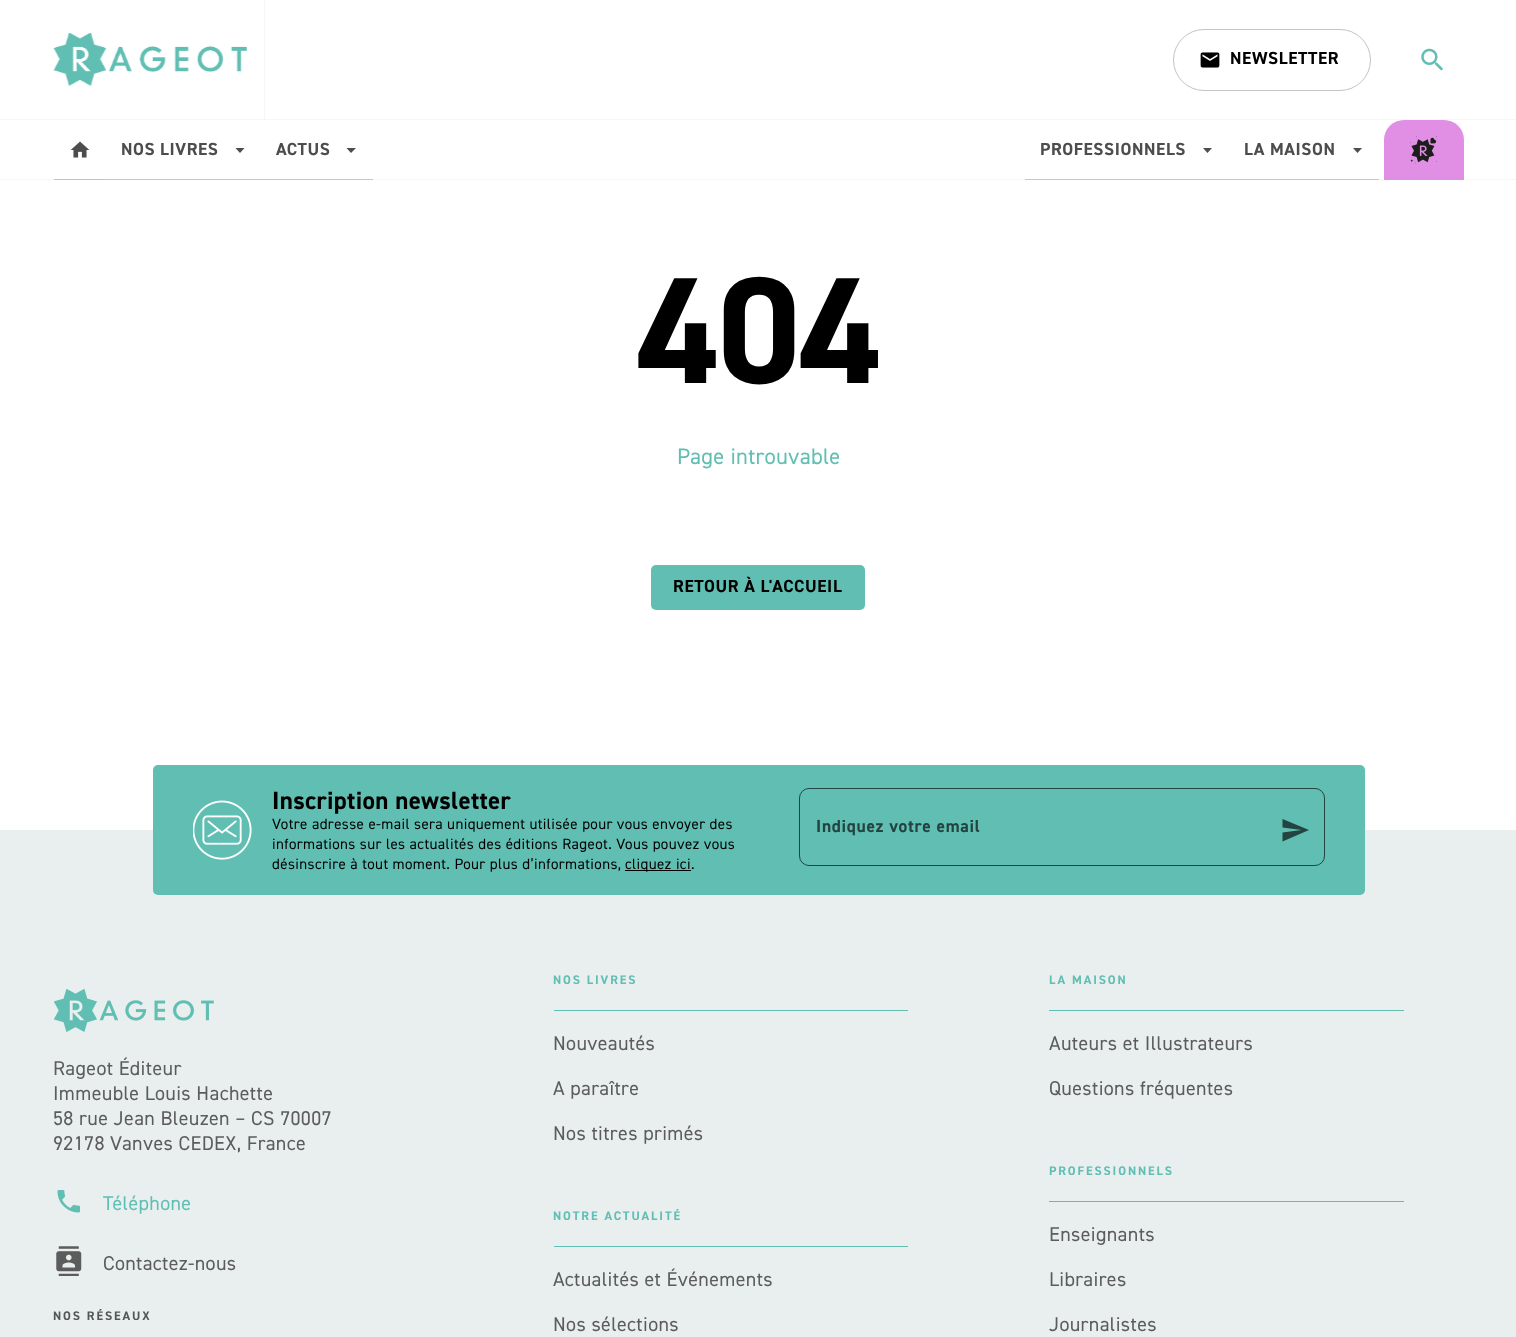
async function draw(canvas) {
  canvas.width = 1516
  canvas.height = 1337
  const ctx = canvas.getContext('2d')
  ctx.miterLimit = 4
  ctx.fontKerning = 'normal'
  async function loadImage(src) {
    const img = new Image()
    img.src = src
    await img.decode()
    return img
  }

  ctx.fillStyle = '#fff'
  ctx.fillRect(0, 0, 1516, 1337)
  ctx.fillStyle = '#f6f6f6'
  ctx.fillRect(0, 119, 1516, 1)
  ctx.fillRect(264, 0, 1, 119)
  ctx.drawImage(await loadImage('image0.png'), 53, 33, 194, 53)
  ctx.beginPath()
  ctx.roundRect(1173.5, 29.5, 197, 61, 30.5)
  ctx.strokeStyle = '#c4c4c4'
  ctx.stroke()
  ctx.drawImage(await loadImage('image1.png'), 1200, 52, 20, 16)
  ctx.letterSpacing = '0.6px'
  ctx.font = 'bold 17.5px "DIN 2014"'
  ctx.fillStyle = '#000'
  ctx.fillText('NEWSLETTER', 1230, 64)
  ctx.drawImage(await loadImage('image2.png'), 1421, 48, 22, 23)
  ctx.drawImage(await loadImage('image3.png'), 70, 141, 20, 17)
  ctx.fillStyle = '#f6f6f6'
  ctx.fillRect(0, 179, 1516, 1)
  ctx.fillStyle = '#c2c2c2'
  ctx.fillRect(54, 179, 52, 1)
  ctx.fillStyle = '#4d4d4d'
  ctx.fillText('NOS LIVRES', 121, 155)
  ctx.beginPath()
  ctx.moveTo(235.5, 148)
  ctx.lineTo(244.5, 148)
  ctx.lineTo(240, 153)
  ctx.closePath()
  ctx.fill()
  ctx.fillStyle = '#c7c7c7'
  ctx.fillRect(106, 179, 267, 1)
  ctx.fillStyle = '#4d4d4d'
  ctx.fillText('ACTUS', 276, 155)
  ctx.beginPath()
  ctx.moveTo(346.5, 148)
  ctx.lineTo(356, 148)
  ctx.lineTo(351, 153)
  ctx.closePath()
  ctx.fill()
  ctx.fillText('PROFESSIONNELS', 1040, 155)
  ctx.beginPath()
  ctx.moveTo(1203, 148)
  ctx.lineTo(1212, 148)
  ctx.lineTo(1207.5, 153)
  ctx.closePath()
  ctx.fill()
  ctx.fillStyle = '#c7c7c7'
  ctx.fillRect(1025, 179, 354, 1)
  ctx.fillStyle = '#4d4d4d'
  ctx.fillText('LA MAISON', 1244, 155)
  ctx.beginPath()
  ctx.moveTo(1353, 148)
  ctx.lineTo(1362, 148)
  ctx.lineTo(1357.5, 153)
  ctx.closePath()
  ctx.fill()
  ctx.fillStyle = '#e18fe5'
  ctx.beginPath()
  ctx.roundRect(1384, 120, 80, 60, [20, 20, 0, 0])
  ctx.fill()
  ctx.drawImage(await loadImage('image4.png'), 1410, 136, 27, 28)
  ctx.letterSpacing = '-1px'
  ctx.font = 'bold 152px "DIN 2014"'
  ctx.fillStyle = '#000'
  ctx.fillText('404', 637, 383)
  ctx.letterSpacing = '0.25px'
  ctx.font = '22.5px "DIN 2014"'
  ctx.fillStyle = '#60beb3'
  ctx.fillText('Page introuvable', 677, 464)
  ctx.beginPath()
  ctx.roundRect(651, 565, 214, 45, 5)
  ctx.fill()
  ctx.letterSpacing = '0.6px'
  ctx.font = 'bold 17.5px "DIN 2014"'
  ctx.fillStyle = '#000'
  ctx.fillText('RETOUR À L\'ACCUEIL', 673, 592)
  ctx.fillStyle = '#e9efef'
  ctx.fillRect(0, 830, 1516, 507)
  ctx.fillStyle = '#60beb3'
  ctx.beginPath()
  ctx.roundRect(153, 765, 1212, 130, 5)
  ctx.fill()
  ctx.drawImage(await loadImage('image5.png'), 193, 800, 59, 60)
  ctx.letterSpacing = '0.3px'
  ctx.font = 'bold 25px "DIN 2014"'
  ctx.fillStyle = '#000'
  ctx.fillText('Inscription newsletter', 272, 809)
  ctx.letterSpacing = '0.38px'
  ctx.font = '15px "DIN 2014"'
  ctx.fillText('Votre adresse e-mail sera uniquement utilisée pour vous envoyer des', 272, 829)
  ctx.fillText('informations sur les actualités des éditions Rageot. Vous pouvez vous', 272, 849)
  ctx.fillText('désinscrire à tout moment. Pour plus d’informations,', 272, 869)
  ctx.fillRect(625, 870, 66, 1)
  ctx.fillText('cliquez ici.', 625, 869)
  ctx.beginPath()
  ctx.roundRect(799.5, 788.5, 525, 77, 9.5)
  ctx.strokeStyle = '#234440'
  ctx.stroke()
  ctx.letterSpacing = '0.7px'
  ctx.font = 'bold 17.5px "DIN 2014"'
  ctx.fillStyle = '#234440'
  ctx.fillText('Indiquez votre email', 816, 832)
  ctx.beginPath()
  ctx.moveTo(1282.5, 841.5)
  ctx.lineTo(1282.5, 832.5)
  ctx.lineTo(1301.5, 830)
  ctx.lineTo(1282.5, 827.5)
  ctx.lineTo(1282.5, 819)
  ctx.lineTo(1309, 830)
  ctx.closePath()
  ctx.fill()
  ctx.drawImage(await loadImage('image6.png'), 54, 988, 160, 44)
  ctx.letterSpacing = '0.35px'
  ctx.font = '20px "DIN 2014"'
  ctx.fillStyle = '#5c5c5c'
  ctx.fillText('Rageot Éditeur', 53, 1075)
  ctx.fillText('Immeuble Louis Hachette', 53, 1100)
  ctx.fillText('58 rue Jean Bleuzen – CS 70007', 53, 1125)
  ctx.fillText('92178 Vanves CEDEX, France', 53, 1150)
  ctx.drawImage(await loadImage('image7.png'), 57, 1190, 23, 23)
  ctx.fillStyle = '#60beb3'
  ctx.fillText('Téléphone', 103, 1210)
  ctx.drawImage(await loadImage('image8.png'), 56, 1246, 26, 30)
  ctx.fillStyle = '#5c5c5c'
  ctx.fillText('Contactez-nous', 103, 1270)
  ctx.letterSpacing = '1.9px'
  ctx.font = 'bold 12.5px "DIN 2014"'
  ctx.fillStyle = '#545656'
  ctx.fillText('NOS RÉSEAUX', 53, 1320)
  ctx.fillStyle = '#60beb3'
  ctx.fillRect(554, 1010, 354, 1)
  ctx.fillText('NOS LIVRES', 553, 984)
  ctx.letterSpacing = '0.35px'
  ctx.font = '20px "DIN 2014"'
  ctx.fillStyle = '#5c5c5c'
  ctx.fillText('Nouveautés', 553, 1050)
  ctx.fillText('A paraître', 553, 1095)
  ctx.fillText('Nos titres primés', 553, 1140)
  ctx.fillStyle = '#60beb3'
  ctx.fillRect(554, 1246, 354, 1)
  ctx.letterSpacing = '1.9px'
  ctx.font = 'bold 12.5px "DIN 2014"'
  ctx.fillText('NOTRE ACTUALITÉ', 553, 1220)
  ctx.letterSpacing = '0.35px'
  ctx.font = '20px "DIN 2014"'
  ctx.fillStyle = '#5c5c5c'
  ctx.fillText('Actualités et Événements', 553, 1286)
  ctx.fillText('Nos sélections', 553, 1331)
  ctx.fillStyle = '#60beb3'
  ctx.fillRect(1049, 1010, 355, 1)
  ctx.letterSpacing = '1.9px'
  ctx.font = 'bold 12.5px "DIN 2014"'
  ctx.fillText('LA MAISON', 1049, 984)
  ctx.letterSpacing = '0.35px'
  ctx.font = '20px "DIN 2014"'
  ctx.fillStyle = '#5c5c5c'
  ctx.fillText('Auteurs et Illustrateurs', 1049, 1050)
  ctx.fillText('Questions fréquentes', 1049, 1095)
  ctx.fillStyle = '#60beb3'
  ctx.fillRect(1049, 1201, 355, 1)
  ctx.letterSpacing = '1.9px'
  ctx.font = 'bold 12.5px "DIN 2014"'
  ctx.fillText('PROFESSIONNELS', 1049, 1175)
  ctx.letterSpacing = '0.35px'
  ctx.font = '20px "DIN 2014"'
  ctx.fillStyle = '#5c5c5c'
  ctx.fillText('Enseignants', 1049, 1241)
  ctx.fillText('Libraires', 1049, 1286)
  ctx.fillText('Journalistes', 1049, 1331)
}

draw(document.querySelector('canvas'))
